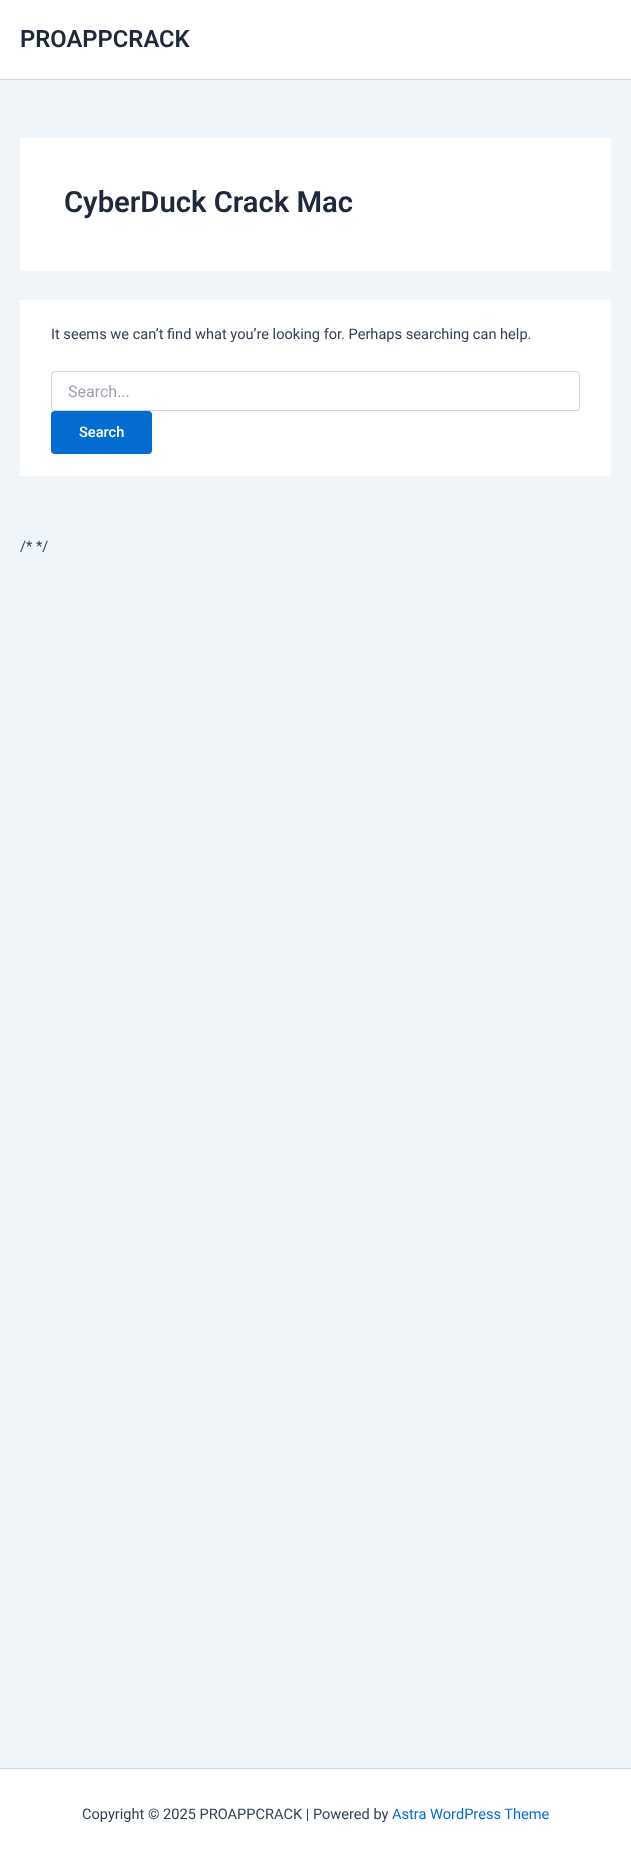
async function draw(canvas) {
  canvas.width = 631
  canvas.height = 1869
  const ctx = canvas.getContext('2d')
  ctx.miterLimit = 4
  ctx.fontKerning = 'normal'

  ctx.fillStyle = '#f0f5fa'
  ctx.fillRect(0, 0, 631, 1869)
  ctx.fillStyle = '#fff'
  ctx.fillRect(0, 0, 631, 79)
  ctx.fillStyle = '#d1d5db'
  ctx.fillRect(0, 79, 631, 1)
  ctx.font = '600 23.75px Roboto'
  ctx.fillStyle = '#1e293b'
  ctx.fillText('PROAPPCRACK', 20, 47)
  ctx.fillStyle = '#fff'
  ctx.fillRect(20, 138, 591, 133)
  ctx.font = '600 29.25px Roboto'
  ctx.fillStyle = '#1e293b'
  ctx.fillText('CyberDuck Crack Mac', 64, 212)
  ctx.fillStyle = '#fff'
  ctx.fillRect(20, 300, 591, 176)
  ctx.font = '14.6px Roboto'
  ctx.fillStyle = '#334155'
  ctx.fillText('It seems we can’t find what you’re looking for. Perhaps searching can help.', 51, 339)
  ctx.fillStyle = '#0000000d'
  ctx.filter = 'blur(1px)'
  ctx.beginPath()
  ctx.roundRect(51, 372, 529, 40, 4)
  ctx.fill()
  ctx.filter = 'none'
  ctx.fillStyle = '#fff'
  ctx.beginPath()
  ctx.roundRect(51.5, 371.5, 528, 39, 3.5)
  ctx.fill()
  ctx.strokeStyle = '#d1d5db'
  ctx.stroke()
  ctx.font = '16px Roboto'
  ctx.fillStyle = '#9ca3af'
  ctx.fillText('Search...', 68, 397)
  ctx.fillStyle = '#0000000d'
  ctx.filter = 'blur(1px)'
  ctx.beginPath()
  ctx.roundRect(51, 412, 101, 43, 4)
  ctx.fill()
  ctx.filter = 'none'
  ctx.fillStyle = '#046bd2'
  ctx.beginPath()
  ctx.roundRect(51, 411, 101, 43, 4)
  ctx.fill()
  ctx.font = '500 14.6px Roboto'
  ctx.fillStyle = '#fff'
  ctx.fillText('Search', 79, 437)
  ctx.font = '14.6px Roboto'
  ctx.fillStyle = '#334155'
  ctx.fillText('/* */', 20, 551)
  ctx.fillStyle = '#fff'
  ctx.fillRect(0, 1769, 631, 100)
  ctx.fillStyle = '#d1d5db'
  ctx.fillRect(0, 1768, 631, 1)
  ctx.fillStyle = '#334155'
  ctx.fillText('Copyright © 2025 PROAPPCRACK | Powered by', 82, 1819)
  ctx.fillStyle = '#046bd2'
  ctx.fillText('Astra WordPress Theme', 392, 1819)
}

draw(document.querySelector('canvas'))
